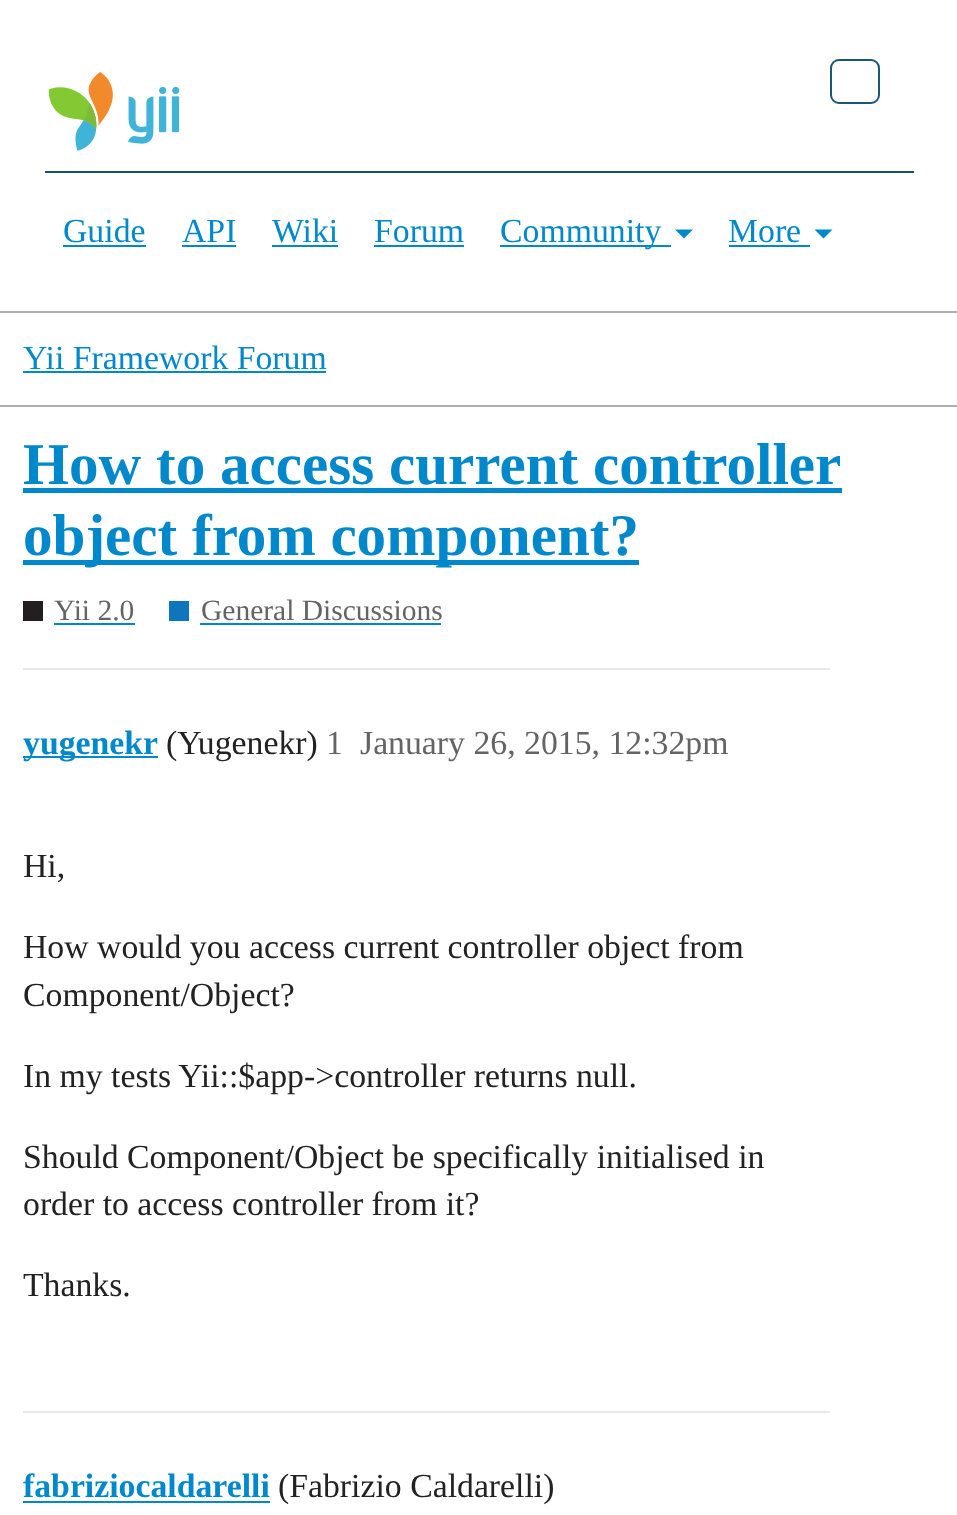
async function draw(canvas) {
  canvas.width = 957
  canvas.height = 1515
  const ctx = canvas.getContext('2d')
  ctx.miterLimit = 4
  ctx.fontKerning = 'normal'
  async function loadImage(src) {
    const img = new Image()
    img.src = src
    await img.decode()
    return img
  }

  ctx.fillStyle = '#fff'
  ctx.fillRect(0, 0, 957, 1515)
  ctx.fillStyle = '#afafaf'
  ctx.fillRect(0, 311, 957, 2)
  ctx.drawImage(await loadImage('image0.png'), 48, 72, 132, 79)
  ctx.beginPath()
  ctx.roundRect(831, 60, 48, 43, 8)
  ctx.strokeStyle = '#195872'
  ctx.lineWidth = 2
  ctx.stroke()
  ctx.fillStyle = '#18516a'
  ctx.fillRect(45, 171, 869, 2)
  ctx.font = '33.75px Liberation Serif'
  ctx.fillStyle = '#08c'
  ctx.fillText('Guide', 63, 242)
  ctx.fillRect(63, 245, 83, 2)
  ctx.fillText('API', 182, 242)
  ctx.fillRect(182, 245, 54, 2)
  ctx.fillText('Wiki', 272, 242)
  ctx.fillRect(272, 245, 66, 2)
  ctx.fillText('Forum', 374, 242)
  ctx.fillRect(374, 245, 90, 2)
  ctx.fillRect(500, 245, 171, 2)
  ctx.fillText('Community', 500, 242)
  ctx.beginPath()
  ctx.moveTo(675, 229.5)
  ctx.lineTo(693, 229.5)
  ctx.lineTo(684, 238.5)
  ctx.closePath()
  ctx.fill()
  ctx.fillText('More', 728, 242)
  ctx.fillRect(729, 245, 81, 2)
  ctx.beginPath()
  ctx.moveTo(814.5, 229.5)
  ctx.lineTo(832.5, 229.5)
  ctx.lineTo(823.5, 238.5)
  ctx.closePath()
  ctx.fill()
  ctx.fillStyle = '#afafaf'
  ctx.fillRect(0, 405, 957, 2)
  ctx.fillStyle = '#08c'
  ctx.fillText('Yii Framework Forum', 23, 369)
  ctx.fillRect(23, 371, 303, 2)
  ctx.font = 'bold 59.1px Liberation Serif'
  ctx.fillText('How to access current controller', 23, 484)
  ctx.fillRect(23, 488, 819, 5)
  ctx.fillRect(23, 560, 616, 5)
  ctx.fillText('object from component?', 23, 555)
  ctx.fillStyle = '#231f20'
  ctx.fillRect(23, 601, 20, 20)
  ctx.font = '29.5px Liberation Serif'
  ctx.fillStyle = '#646464'
  ctx.fillText('Yii 2.0', 54, 620)
  ctx.fillStyle = '#08c'
  ctx.fillRect(54, 623, 81, 2)
  ctx.fillStyle = '#0e76bd'
  ctx.fillRect(169, 601, 20, 20)
  ctx.fillStyle = '#646464'
  ctx.fillText('General Discussions', 201, 620)
  ctx.fillStyle = '#08c'
  ctx.fillRect(200, 623, 241, 2)
  ctx.fillStyle = '#e9e9e9'
  ctx.fillRect(23, 668, 807, 2)
  ctx.fillStyle = '#08c'
  ctx.fillRect(23, 756, 135, 2)
  ctx.font = 'bold 33.75px Liberation Serif'
  ctx.fillText('yugenekr', 23, 754)
  ctx.font = '33.75px Liberation Serif'
  ctx.fillStyle = '#222'
  ctx.fillText('(Yugenekr)', 166, 754)
  ctx.fillStyle = '#646464'
  ctx.fillText('1', 326, 754)
  ctx.fillText('January 26, 2015, 12:32pm', 360, 754)
  ctx.fillStyle = '#222'
  ctx.fillText('Hi,', 23, 877)
  ctx.fillText('How would you access current controller object from', 23, 958)
  ctx.fillText('Component/Object?', 23, 1006)
  ctx.fillText('In my tests Yii::$app->controller returns null.', 23, 1087)
  ctx.fillText('Should Component/Object be specifically initialised in', 23, 1168)
  ctx.fillText('order to access controller from it?', 23, 1215)
  ctx.fillText('Thanks.', 23, 1296)
  ctx.fillStyle = '#e9e9e9'
  ctx.fillRect(23, 1411, 807, 2)
  ctx.font = 'bold 33.75px Liberation Serif'
  ctx.fillStyle = '#08c'
  ctx.fillText('fabriziocaldarelli', 23, 1497)
  ctx.fillRect(23, 1501, 247, 2)
  ctx.font = '33.75px Liberation Serif'
  ctx.fillStyle = '#222'
  ctx.fillText('(Fabrizio Caldarelli)', 278, 1497)
}

draw(document.querySelector('canvas'))
